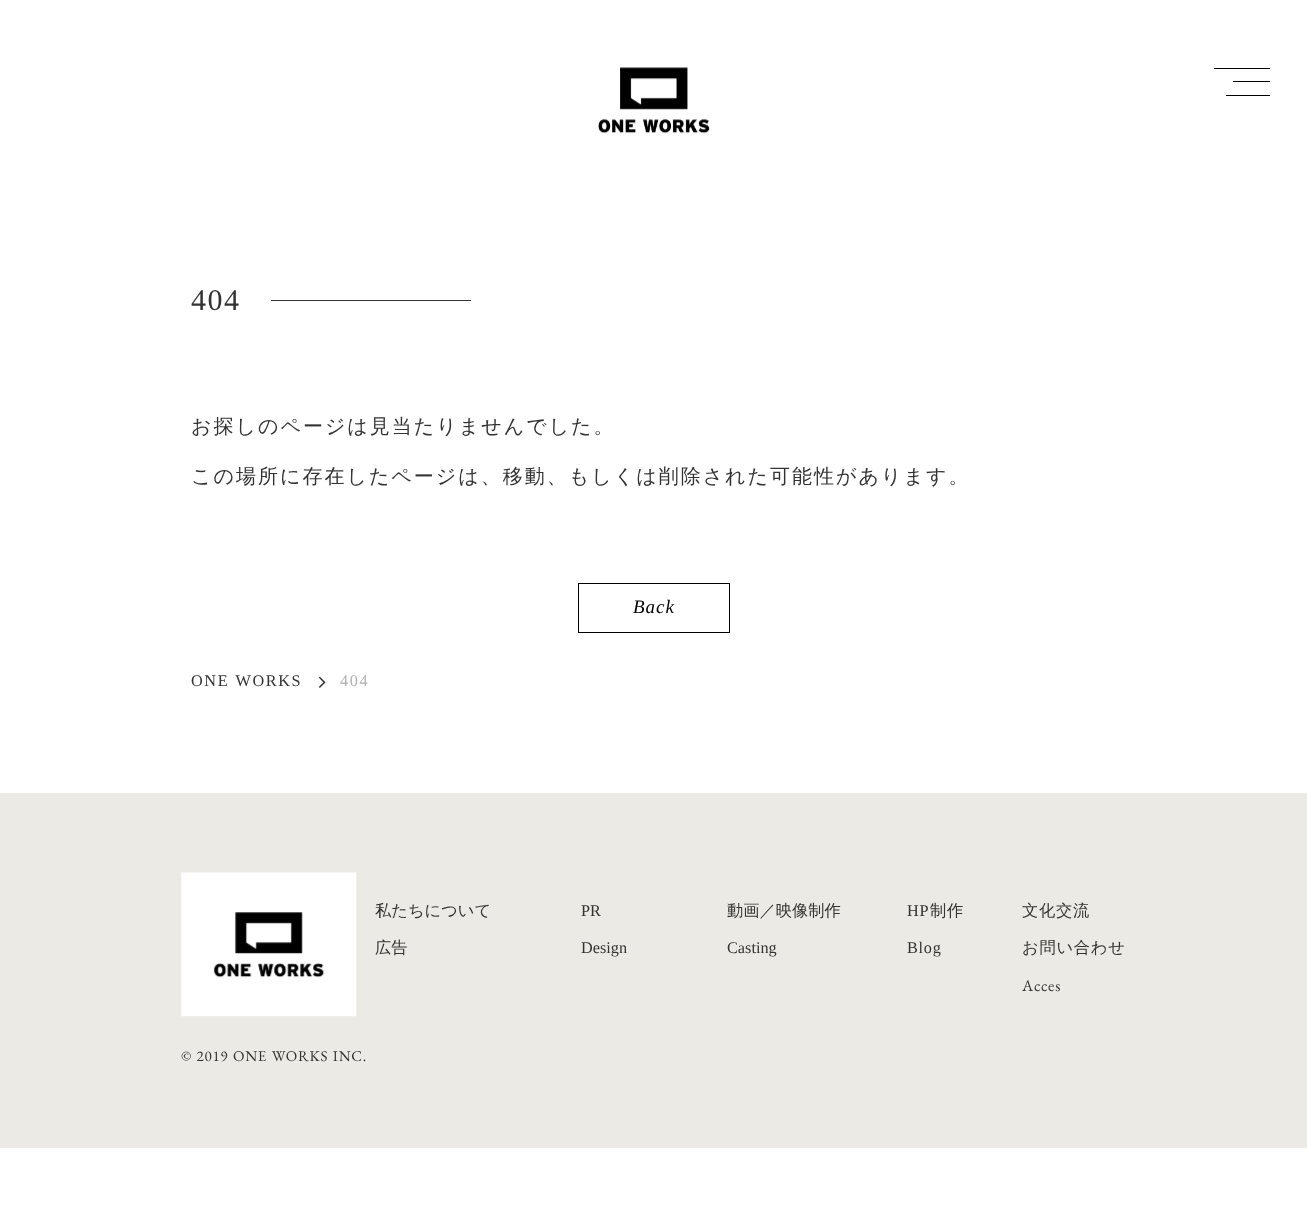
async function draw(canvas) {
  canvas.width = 1307
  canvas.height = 1228
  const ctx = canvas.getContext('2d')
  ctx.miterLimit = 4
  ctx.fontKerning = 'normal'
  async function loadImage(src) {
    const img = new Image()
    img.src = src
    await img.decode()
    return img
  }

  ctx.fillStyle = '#fff'
  ctx.fillRect(0, 0, 1307, 1228)
  ctx.drawImage(await loadImage('image0.png'), 598, 67, 112, 67)
  ctx.fillStyle = '#000'
  ctx.fillRect(1214, 68, 56, 1)
  ctx.fillRect(1233, 81, 37, 1)
  ctx.fillRect(1226, 95, 44, 1)
  ctx.letterSpacing = '1.5px'
  ctx.font = '30px Liberation Serif'
  ctx.fillStyle = '#333'
  ctx.fillText('404', 191, 310)
  ctx.fillRect(271, 300, 200, 1)
  ctx.letterSpacing = '2px'
  ctx.font = '500 20px WenQuanYi Zen Hei'
  ctx.fillText('お探しのページは見当たりませんでした。', 191, 433)
  ctx.fillText('この場所に存在したページは、移動、もしくは削除された可能性があります。', 191, 483)
  ctx.strokeStyle = '#000'
  ctx.strokeRect(578.5, 583.5, 151, 49)
  ctx.letterSpacing = '1px'
  ctx.font = 'italic 19px Liberation Serif'
  ctx.fillStyle = '#000'
  ctx.fillText('Back', 633, 613)
  ctx.letterSpacing = '1.6px'
  ctx.wordSpacing = '1px'
  ctx.font = '16.25px Liberation Serif'
  ctx.fillStyle = '#333'
  ctx.fillText('ONE WORKS', 191, 686)
  ctx.drawImage(await loadImage('image1.png'), 318, 676, 8, 12)
  ctx.wordSpacing = '0px'
  ctx.fillStyle = '#b1b1b1'
  ctx.fillText('404', 340, 686)
  ctx.fillStyle = '#eceae5'
  ctx.fillRect(0, 793, 1307, 355)
  ctx.drawImage(await loadImage('image2.png'), 181, 872, 176, 145)
  ctx.letterSpacing = '0px'
  ctx.font = '500 16.25px WenQuanYi Zen Hei'
  ctx.fillStyle = '#333'
  ctx.fillText('私たちについて', 375, 916)
  ctx.fillText('広告', 375, 953)
  ctx.font = '16.25px Liberation Serif'
  ctx.fillText('PR', 581, 916)
  ctx.fillText('Design', 581, 953)
  ctx.font = '500 16.25px WenQuanYi Zen Hei'
  ctx.fillText('動画／映像制作', 727, 916)
  ctx.font = '16.25px Liberation Serif'
  ctx.fillText('Casting', 727, 953)
  ctx.letterSpacing = '0.75px'
  ctx.fillText('HP', 907, 916)
  ctx.font = '500 16.25px WenQuanYi Zen Hei'
  ctx.fillText('制作', 930, 916)
  ctx.font = '16.25px Liberation Serif'
  ctx.fillText('Blog', 907, 953)
  ctx.font = '500 16.25px WenQuanYi Zen Hei'
  ctx.fillText('文化交流', 1022, 916)
  ctx.fillText('お問い合わせ', 1022, 953)
  ctx.font = '16.25px EB Garamond'
  ctx.fillText('Acces', 1022, 991)
  ctx.wordSpacing = '1px'
  ctx.font = '15px EB Garamond'
  ctx.fillText('©︎ 2019 ONE WORKS INC.', 181, 1061)
}

draw(document.querySelector('canvas'))
